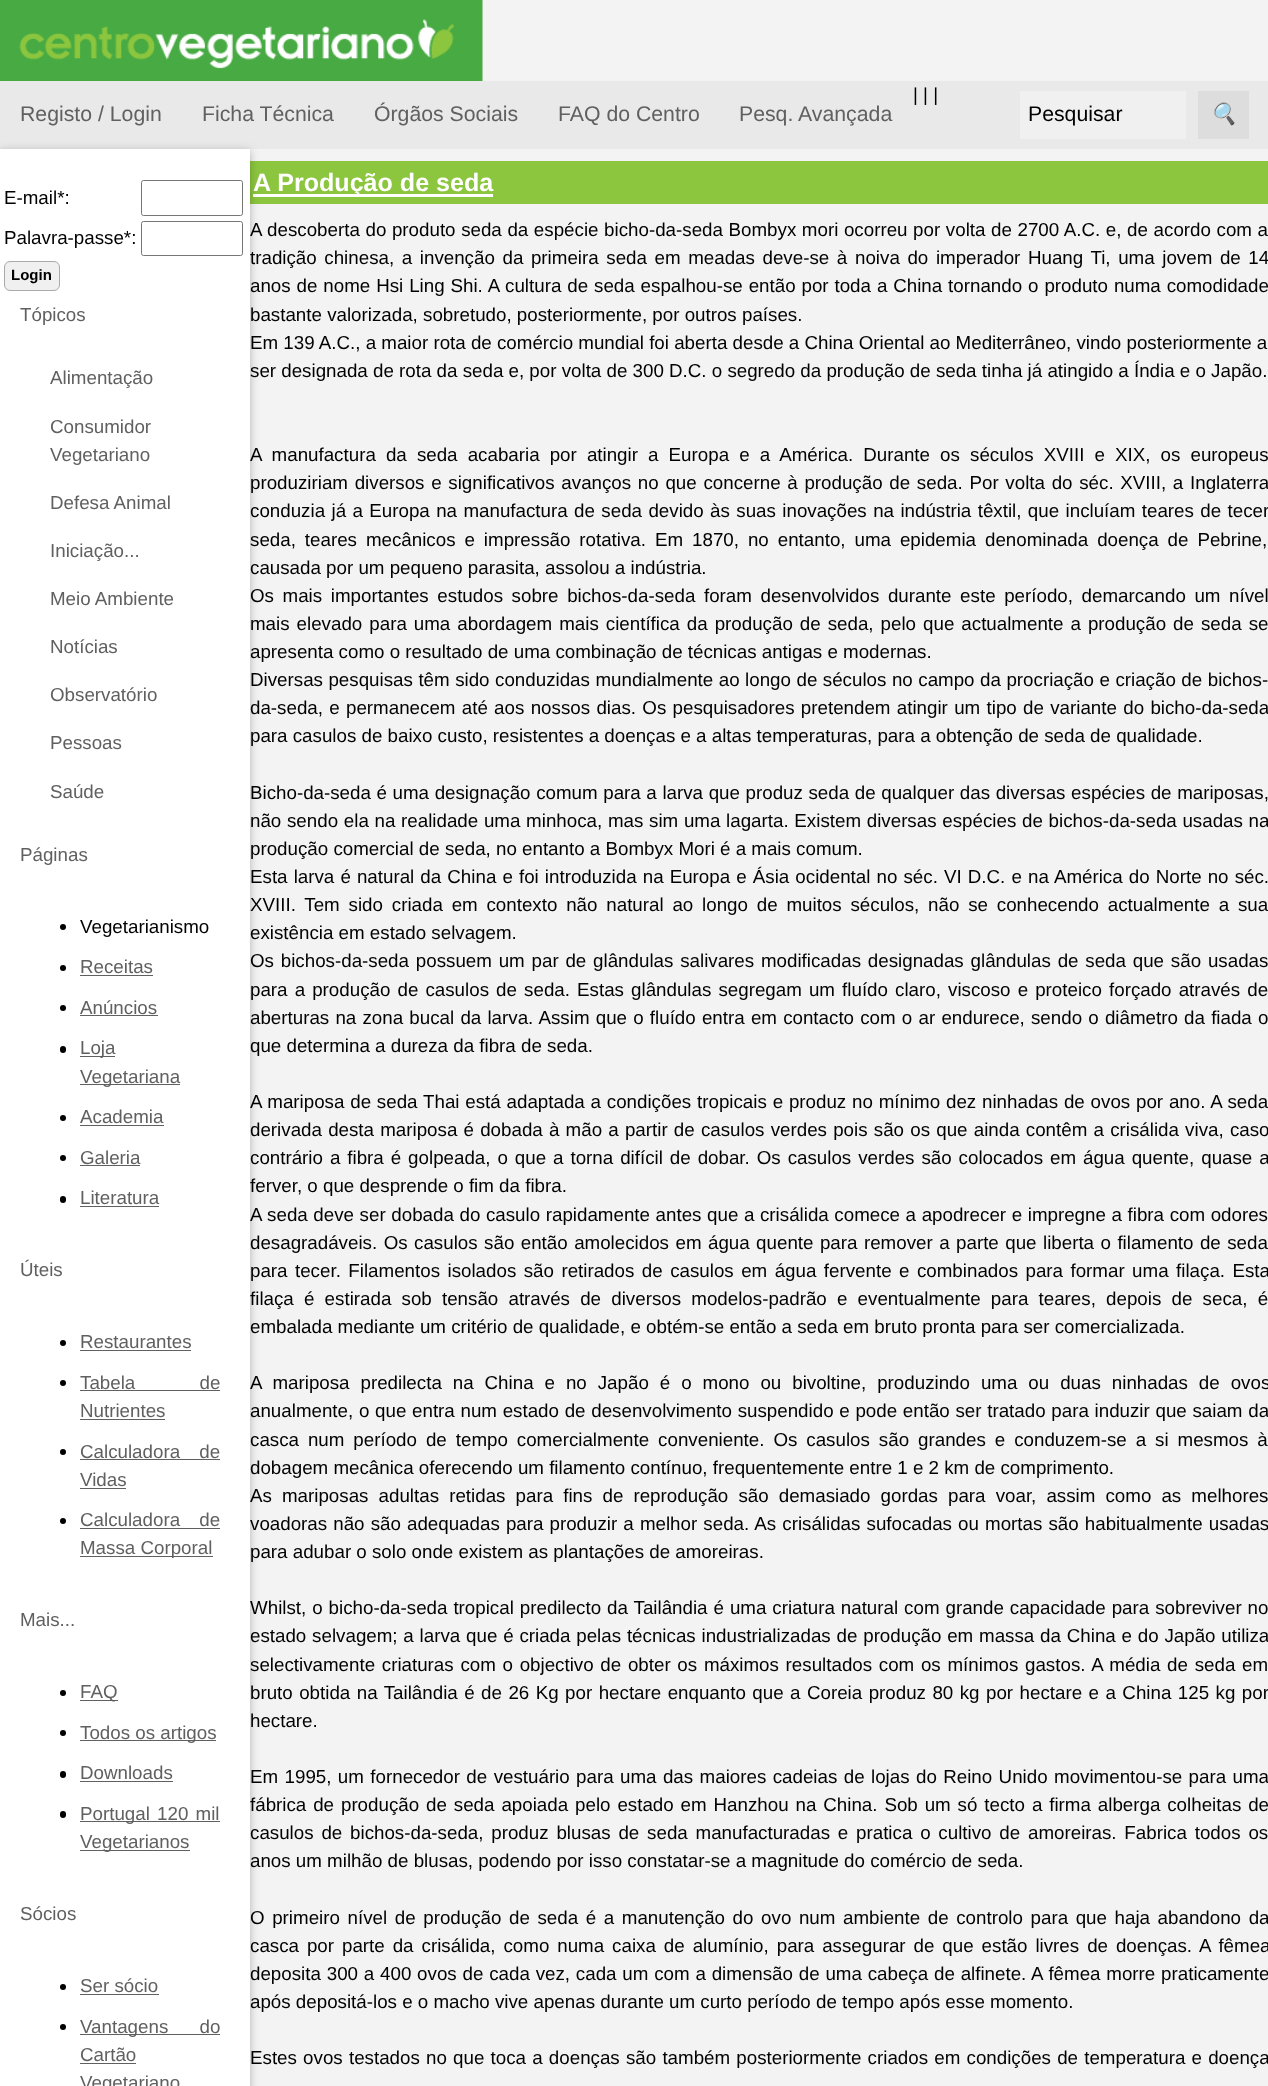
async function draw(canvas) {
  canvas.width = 1268
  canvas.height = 2086
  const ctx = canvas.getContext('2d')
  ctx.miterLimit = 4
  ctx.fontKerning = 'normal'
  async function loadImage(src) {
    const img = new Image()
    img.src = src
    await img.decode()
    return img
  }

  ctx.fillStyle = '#f3f3f3'
  ctx.fillRect(0, 0, 1268, 2086)
  ctx.drawImage(await loadImage('image0.png'), 0, 0, 483, 81)
  ctx.fillStyle = '#e9e9e9'
  ctx.fillRect(0, 81, 1268, 68)
  ctx.font = '18.75px Liberation Sans'
  ctx.fillStyle = '#000'
  ctx.fillText('| | |', 913, 101)
  ctx.font = '21.25px Liberation Sans'
  ctx.fillStyle = '#606060'
  ctx.fillText('Registo / Login', 20, 121)
  ctx.fillText('Ficha Técnica', 202, 121)
  ctx.fillText('Órgãos Sociais', 374, 121)
  ctx.fillText('FAQ do Centro', 558, 121)
  ctx.fillText('Pesq. Avançada', 739, 121)
  ctx.fillStyle = '#f0f0f0'
  ctx.fillRect(1020, 91, 166, 48)
  ctx.fillStyle = '#000'
  ctx.fillText('Pesquisar', 1028, 121)
  ctx.fillStyle = '#ddd'
  ctx.fillRect(1198, 91, 51, 48)
  ctx.font = 'italic 21.25px Noto Color Emoji'
  ctx.fillStyle = '#000'
  ctx.fillText('🔍', 1210, 121)
  ctx.fillStyle = '#8cc63f'
  ctx.fillRect(250, 161, 1018, 43)
  ctx.fillStyle = '#fff'
  ctx.fillRect(253, 194, 240, 3)
  ctx.fillStyle = '#0000001f'
  ctx.filter = 'blur(6px)'
  ctx.beginPath()
  ctx.rect(0, 151, 250, 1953)
  ctx.fill()
  ctx.filter = 'none'
  ctx.fillStyle = '#00000029'
  ctx.filter = 'blur(3px)'
  ctx.beginPath()
  ctx.rect(0, 151, 250, 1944)
  ctx.fill()
  ctx.filter = 'none'
  ctx.fillStyle = '#fff'
  ctx.fillRect(0, 149, 250, 1937)
  ctx.font = '18.75px Liberation Sans'
  ctx.fillStyle = '#000'
  ctx.fillText('E-mail*:', 4, 204)
  ctx.beginPath()
  ctx.roundRect(141.5, 180.5, 101, 35, 2)
  ctx.strokeStyle = '#767676'
  ctx.stroke()
  ctx.fillText('Palavra-passe*:', 4, 244)
  ctx.beginPath()
  ctx.roundRect(141.5, 221.5, 101, 34, 2)
  ctx.stroke()
  ctx.fillStyle = '#f0f0f0'
  ctx.beginPath()
  ctx.roundRect(4.5, 261.5, 55, 29, 5.5)
  ctx.fill()
  ctx.strokeStyle = '#aaa'
  ctx.stroke()
  ctx.font = 'bold 15px Liberation Sans'
  ctx.fillStyle = '#000'
  ctx.fillText('Login', 11, 280)
  ctx.font = '18.75px Liberation Sans'
  ctx.fillStyle = '#606060'
  ctx.fillText('Tópicos', 20, 321)
  ctx.fillText('Alimentação', 50, 384)
  ctx.fillText('Consumidor', 50, 433)
  ctx.fillText('Vegetariano', 50, 461)
  ctx.fillText('Defesa Animal', 50, 509)
  ctx.fillText('Iniciação...', 50, 557)
  ctx.fillText('Meio Ambiente', 50, 605)
  ctx.fillText('Notícias', 50, 653)
  ctx.fillText('Observatório', 50, 701)
  ctx.fillText('Pessoas', 50, 749)
  ctx.fillText('Saúde', 50, 798)
  ctx.fillText('Páginas', 20, 861)
  ctx.fillStyle = '#000'
  ctx.beginPath()
  ctx.arc(63, 927, 3, 0, 2 * Math.PI)
  ctx.fill()
  ctx.fillText('Vegetarianismo', 80, 933)
  ctx.beginPath()
  ctx.arc(63, 968, 3, 0, 2 * Math.PI)
  ctx.fill()
  ctx.fillStyle = '#606060'
  ctx.fillText('Receitas', 80, 973)
  ctx.fillRect(80, 975, 73, 1)
  ctx.fillStyle = '#000'
  ctx.beginPath()
  ctx.arc(63, 1008, 3, 0, 2 * Math.PI)
  ctx.fill()
  ctx.fillStyle = '#606060'
  ctx.fillText('Anúncios', 80, 1014)
  ctx.fillRect(80, 1015, 78, 1)
  ctx.fillStyle = '#000'
  ctx.beginPath()
  ctx.roundRect(60, 1046, 6, 7, 3)
  ctx.fill()
  ctx.fillStyle = '#606060'
  ctx.fillRect(80, 1056, 35, 1)
  ctx.fillText('Loja', 80, 1054)
  ctx.fillRect(80, 1084, 100, 1)
  ctx.fillText('Vegetariana', 80, 1083)
  ctx.fillStyle = '#000'
  ctx.beginPath()
  ctx.arc(63, 1118, 3, 0, 2 * Math.PI)
  ctx.fill()
  ctx.fillStyle = '#606060'
  ctx.fillText('Academia', 80, 1123)
  ctx.fillRect(80, 1125, 84, 1)
  ctx.fillStyle = '#000'
  ctx.beginPath()
  ctx.arc(63, 1158, 3, 0, 2 * Math.PI)
  ctx.fill()
  ctx.fillStyle = '#606060'
  ctx.fillText('Galeria', 80, 1164)
  ctx.fillRect(80, 1165, 60, 1)
  ctx.fillStyle = '#000'
  ctx.beginPath()
  ctx.roundRect(60, 1196, 6, 7, 3)
  ctx.fill()
  ctx.fillStyle = '#606060'
  ctx.fillText('Literatura', 80, 1204)
  ctx.fillRect(80, 1206, 79, 1)
  ctx.fillText('Úteis', 20, 1276)
  ctx.fillStyle = '#000'
  ctx.beginPath()
  ctx.arc(63, 1343, 3, 0, 2 * Math.PI)
  ctx.fill()
  ctx.fillStyle = '#606060'
  ctx.fillText('Restaurantes', 80, 1348)
  ctx.fillRect(80, 1350, 111, 1)
  ctx.fillStyle = '#000'
  ctx.beginPath()
  ctx.arc(63, 1383, 3, 0, 2 * Math.PI)
  ctx.fill()
  ctx.wordSpacing = '59px'
  ctx.fillStyle = '#606060'
  ctx.fillText('Tabela de', 80, 1389)
  ctx.fillRect(80, 1390, 140, 1)
  ctx.wordSpacing = '0px'
  ctx.fillText('Nutrientes', 80, 1417)
  ctx.fillRect(80, 1419, 85, 1)
  ctx.fillStyle = '#000'
  ctx.beginPath()
  ctx.arc(63, 1452, 3, 0, 2 * Math.PI)
  ctx.fill()
  ctx.wordSpacing = '14px'
  ctx.fillStyle = '#606060'
  ctx.fillText('Calculadora de', 80, 1458)
  ctx.fillRect(80, 1459, 140, 1)
  ctx.wordSpacing = '0px'
  ctx.fillText('Vidas', 80, 1486)
  ctx.fillRect(80, 1488, 46, 1)
  ctx.fillStyle = '#000'
  ctx.beginPath()
  ctx.arc(63, 1521, 3, 0, 2 * Math.PI)
  ctx.fill()
  ctx.wordSpacing = '14px'
  ctx.fillStyle = '#606060'
  ctx.fillText('Calculadora de', 80, 1526)
  ctx.fillRect(80, 1528, 140, 1)
  ctx.fillRect(80, 1556, 133, 1)
  ctx.wordSpacing = '0px'
  ctx.fillText('Massa Corporal', 80, 1554)
  ctx.fillText('Mais...', 20, 1626)
  ctx.fillStyle = '#000'
  ctx.beginPath()
  ctx.arc(63, 1693, 3, 0, 2 * Math.PI)
  ctx.fill()
  ctx.fillStyle = '#606060'
  ctx.fillRect(80, 1700, 38, 1)
  ctx.fillText('FAQ', 80, 1698)
  ctx.fillStyle = '#000'
  ctx.beginPath()
  ctx.arc(63, 1733, 3, 0, 2 * Math.PI)
  ctx.fill()
  ctx.fillStyle = '#606060'
  ctx.fillRect(80, 1740, 136, 1)
  ctx.fillText('Todos os artigos', 80, 1739)
  ctx.fillStyle = '#000'
  ctx.beginPath()
  ctx.roundRect(60, 1771, 6, 7, 3)
  ctx.fill()
  ctx.fillStyle = '#606060'
  ctx.fillText('Downloads', 80, 1779)
  ctx.fillRect(80, 1781, 93, 1)
  ctx.fillStyle = '#000'
  ctx.beginPath()
  ctx.roundRect(60, 1811, 6, 7, 3)
  ctx.fill()
  ctx.fillStyle = '#606060'
  ctx.fillRect(80, 1821, 140, 1)
  ctx.wordSpacing = '2px'
  ctx.fillText('Portugal 120 mil', 80, 1820)
  ctx.fillRect(80, 1850, 110, 1)
  ctx.wordSpacing = '0px'
  ctx.fillText('Vegetarianos', 80, 1848)
  ctx.fillText('Sócios', 20, 1920)
  ctx.fillStyle = '#000'
  ctx.beginPath()
  ctx.arc(63, 1987, 3, 0, 2 * Math.PI)
  ctx.fill()
  ctx.fillStyle = '#606060'
  ctx.fillText('Ser sócio', 80, 1992)
  ctx.fillRect(80, 1994, 79, 1)
  ctx.fillStyle = '#000'
  ctx.beginPath()
  ctx.arc(63, 2027, 3, 0, 2 * Math.PI)
  ctx.fill()
  ctx.fillStyle = '#606060'
  ctx.fillRect(80, 2034, 140, 1)
  ctx.wordSpacing = '26px'
  ctx.fillText('Vantagens do', 80, 2033)
  ctx.wordSpacing = '0px'
  ctx.fillText('Cartão', 80, 2061)
  ctx.fillRect(80, 2063, 56, 1)
  ctx.fillText('Vegetariano', 80, 2089)
  ctx.font = 'bold 25.1px Liberation Sans'
  ctx.fillStyle = '#fff'
  ctx.fillText('A Produção de seda', 253, 191)
  ctx.wordSpacing = '0.4px'
  ctx.font = '18.75px Liberation Sans'
  ctx.fillStyle = '#000'
  ctx.fillText('A descoberta do produto seda da espécie bicho-da-seda Bombyx mori ocorreu por volta de 2700 A.C. e, de acordo com a', 250, 236)
  ctx.wordSpacing = '2.4px'
  ctx.fillText('tradição chinesa, a invenção da primeira seda em meadas deve-se à', 250, 264)
  ctx.fillText('noiva do imperador Huang Ti, uma jovem de 14', 855, 264)
  ctx.wordSpacing = '0.7px'
  ctx.fillText('anos de nome Hsi Ling Shi. A cultura de seda espalhou-se então por toda a China tornando o produto numa comodidade', 250, 292)
  ctx.wordSpacing = '0px'
  ctx.fillText('bastante valorizada, sobretudo, posteriormente, por outros países.', 250, 321)
  ctx.fillText('Em 139 A.C., a maior rota de comércio mundial foi aberta desde a China Oriental ao Mediterrâneo, vindo posteriormente a', 250, 349)
  ctx.fillText('ser designada de rota da seda e, por volta de 300 D.C. o segredo da produção de seda tinha já atingido a Índia e o Japão.', 250, 377)
  ctx.wordSpacing = '4.9px'
  ctx.fillText('A manufactura da seda acabaria por atingir a Europa e a América. Durante os séculos XVIII e XIX, os europeus', 250, 461)
  ctx.wordSpacing = '1.5px'
  ctx.fillText('produziriam diversos e significativos avanços no que concerne à produção de seda. Por volta do séc. XVIII, a Inglaterra', 250, 489)
  ctx.wordSpacing = '1.2px'
  ctx.fillText('conduzia já a Europa na manufactura de seda devido às suas inovações na indústria têxtil, que incluíam teares de tecer', 250, 517)
  ctx.wordSpacing = '3.75px'
  ctx.fillText('seda, teares mecânicos e impressão rotativa. Em 1870, no entanto, uma epidemia denominada doença de Pebrine,', 250, 546)
  ctx.wordSpacing = '0px'
  ctx.fillText('causada por um pequeno parasita, assolou a indústria.', 250, 574)
  ctx.wordSpacing = '3.4px'
  ctx.fillText('Os mais importantes estudos sobre bichos-da-seda foram desenvolvidos durante este período, demarcando um nível', 250, 602)
  ctx.wordSpacing = '1.8px'
  ctx.fillText('mais elevado para uma abordagem mais científica da produção de seda, pelo que actualmente a produção de seda se', 250, 630)
  ctx.wordSpacing = '0px'
  ctx.fillText('apresenta como o resultado de uma combinação de técnicas antigas e modernas.', 250, 658)
  ctx.wordSpacing = '0.3px'
  ctx.fillText('Diversas pesquisas têm sido conduzidas mundialmente ao longo de séculos no campo da procriação e criação de bichos-', 250, 686)
  ctx.wordSpacing = '1.1px'
  ctx.fillText('da-seda, e permanecem até aos nossos dias. Os pesquisadores pretendem atingir um tipo de variante do bicho-da-seda', 250, 714)
  ctx.wordSpacing = '0px'
  ctx.fillText('para casulos de baixo custo, resistentes a doenças e a altas temperaturas, para a obtenção de seda de qualidade.', 250, 742)
  ctx.wordSpacing = '0.4px'
  ctx.fillText('Bicho-da-seda é uma designação comum para a larva que produz seda de qualquer das diversas espécies de mariposas,', 250, 799)
  ctx.wordSpacing = '0.5px'
  ctx.fillText('não sendo ela na realidade uma minhoca, mas sim uma lagarta. Existem diversas espécies de bichos-da-seda usadas na', 250, 827)
  ctx.wordSpacing = '0px'
  ctx.fillText('produção comercial de seda, no entanto a Bombyx Mori é a mais comum.', 250, 855)
  ctx.wordSpacing = '0.9px'
  ctx.fillText('Esta larva é natural da China e foi introduzida na Europa e Ásia ocidental no séc. VI D.C. e na América do Norte no séc.', 250, 883)
  ctx.wordSpacing = '3.6px'
  ctx.fillText('XVIII. Tem sido criada em contexto não natural ao longo de muitos séculos, não se conhecendo actualmente a sua', 250, 911)
  ctx.wordSpacing = '0px'
  ctx.fillText('existência em estado selvagem.', 250, 939)
  ctx.wordSpacing = '1.6px'
  ctx.fillText('Os bichos-da-seda possuem um par de glândulas salivares modificadas designadas glândulas de seda que são usadas', 250, 967)
  ctx.wordSpacing = '1.9px'
  ctx.fillText('para a produção de casulos de seda. Estas glândulas segregam um fluído claro, viscoso e proteico forçado através de', 250, 996)
  ctx.wordSpacing = '1px'
  ctx.fillText('aberturas na zona bucal da larva. Assim que o fluído entra em contacto com o ar endurece, sendo o diâmetro da fiada o', 250, 1024)
  ctx.wordSpacing = '0px'
  ctx.fillText('que determina a dureza da fibra de seda.', 250, 1052)
  ctx.wordSpacing = '0.6px'
  ctx.fillText('A mariposa de seda Thai está adaptada a condições tropicais e produz no mínimo dez ninhadas de ovos por ano. A seda', 250, 1108)
  ctx.wordSpacing = '1px'
  ctx.fillText('derivada desta mariposa é dobada à mão a partir de casulos verdes pois são os que ainda contêm a crisálida viva, caso', 250, 1136)
  ctx.wordSpacing = '1.75px'
  ctx.fillText('contrário a fibra é golpeada, o que a torna difícil de dobar. Os casulos verdes são colocados em água quente, quase a', 250, 1164)
  ctx.wordSpacing = '0px'
  ctx.fillText('ferver, o que desprende o fim da fibra.', 250, 1192)
  ctx.wordSpacing = '0.4px'
  ctx.fillText('A seda deve ser dobada do casulo rapidamente antes que a crisálida comece a apodrecer e impregne a fibra com odores', 250, 1221)
  ctx.wordSpacing = '1.25px'
  ctx.fillText('desagradáveis. Os casulos são então amolecidos em água quente para remover a parte que liberta o filamento de seda', 250, 1249)
  ctx.wordSpacing = '2.25px'
  ctx.fillText('para tecer. Filamentos isolados são retirados de casulos em água fervente e combinados para formar uma filaça. Esta', 250, 1277)
  ctx.wordSpacing = '5px'
  ctx.fillText('filaça é estirada sob tensão através de diversos modelos-padrão e eventualmente para teares, depois de seca, é', 250, 1305)
  ctx.wordSpacing = '0px'
  ctx.fillText('embalada mediante um critério de qualidade, e obtém-se então a seda em bruto pronta para ser comercializada.', 250, 1333)
  ctx.wordSpacing = '5.75px'
  ctx.fillText('A mariposa predilecta na China e no Japão é o mono ou bivoltine, produzindo uma ou duas ninhadas de ovos', 250, 1389)
  ctx.wordSpacing = '0.5px'
  ctx.fillText('anualmente, o que entra num estado de desenvolvimento suspendido e pode então ser tratado para induzir que saiam da', 250, 1417)
  ctx.wordSpacing = '3.75px'
  ctx.fillText('casca num período de tempo comercialmente conveniente. Os casulos são grandes e conduzem-se a si mesmos à', 250, 1446)
  ctx.wordSpacing = '0px'
  ctx.fillText('dobagem mecânica oferecendo um filamento contínuo, frequentemente entre 1 e 2 km de comprimento.', 250, 1474)
  ctx.wordSpacing = '4.9px'
  ctx.fillText('As mariposas adultas retidas para fins de reprodução são demasiado gordas para voar, assim como as melhores', 250, 1502)
  ctx.wordSpacing = '0.9px'
  ctx.fillText('voadoras não são adequadas para produzir a melhor seda. As crisálidas sufocadas ou mortas são habitualmente usadas', 250, 1530)
  ctx.wordSpacing = '0px'
  ctx.fillText('para adubar o solo onde existem as plantações de amoreiras.', 250, 1558)
  ctx.wordSpacing = '0.75px'
  ctx.fillText('Whilst, o bicho-da-seda tropical predilecto da Tailândia é uma criatura natural com grande capacidade para sobreviver no', 250, 1614)
  ctx.wordSpacing = '0.6px'
  ctx.fillText('estado selvagem; a larva que é criada pelas técnicas industrializadas de produção em massa da China e do Japão utiliza', 250, 1642)
  ctx.wordSpacing = '1.5px'
  ctx.fillText('selectivamente criaturas com o objectivo de obter os máximos resultados com os mínimos gastos. A média de seda em', 250, 1671)
  ctx.wordSpacing = '1.25px'
  ctx.fillText('bruto obtida na Tailândia é de 26 Kg por hectare enquanto que a Coreia produz 80 kg por hectare e a China 125 kg por', 250, 1699)
  ctx.wordSpacing = '0px'
  ctx.fillText('hectare.', 250, 1727)
  ctx.wordSpacing = '1.2px'
  ctx.fillText('Em 1995, um fornecedor de vestuário para uma das maiores cadeias de lojas do Reino Unido movimentou-se para uma', 250, 1783)
  ctx.wordSpacing = '1.7px'
  ctx.fillText('fábrica de produção de seda apoiada pelo estado em Hanzhou na China. Sob um só tecto a firma alberga colheitas de', 250, 1811)
  ctx.wordSpacing = '2.6px'
  ctx.fillText('casulos de bichos-da-seda, produz blusas de seda manufacturadas e pratica o cultivo de amoreiras. Fabrica todos os', 250, 1839)
  ctx.wordSpacing = '0px'
  ctx.fillText('anos um milhão de blusas, podendo por isso constatar-se a magnitude do comércio de seda.', 250, 1867)
  ctx.wordSpacing = '2.4px'
  ctx.fillText('O primeiro nível de produção de seda é a manutenção do ovo num ambiente de controlo para que haja abandono da', 250, 1924)
  ctx.wordSpacing = '2.75px'
  ctx.fillText('casca por parte da crisálida, como numa caixa de alumínio, para assegurar de que estão livres de doenças. A fêmea', 250, 1952)
  ctx.wordSpacing = '0.6px'
  ctx.fillText('deposita 300 a 400 ovos de cada vez, cada um com a dimensão de uma cabeça de alfinete. A fêmea morre praticamente', 250, 1980)
  ctx.wordSpacing = '0px'
  ctx.fillText('após depositá-los e o macho vive apenas durante um curto período de tempo após esse momento.', 250, 2008)
  ctx.wordSpacing = '1px'
  ctx.fillText('Estes ovos testados no que toca a doenças são também posteriormente criados em condições de temperatura e doença', 250, 2064)
}

draw(document.querySelector('canvas'))
